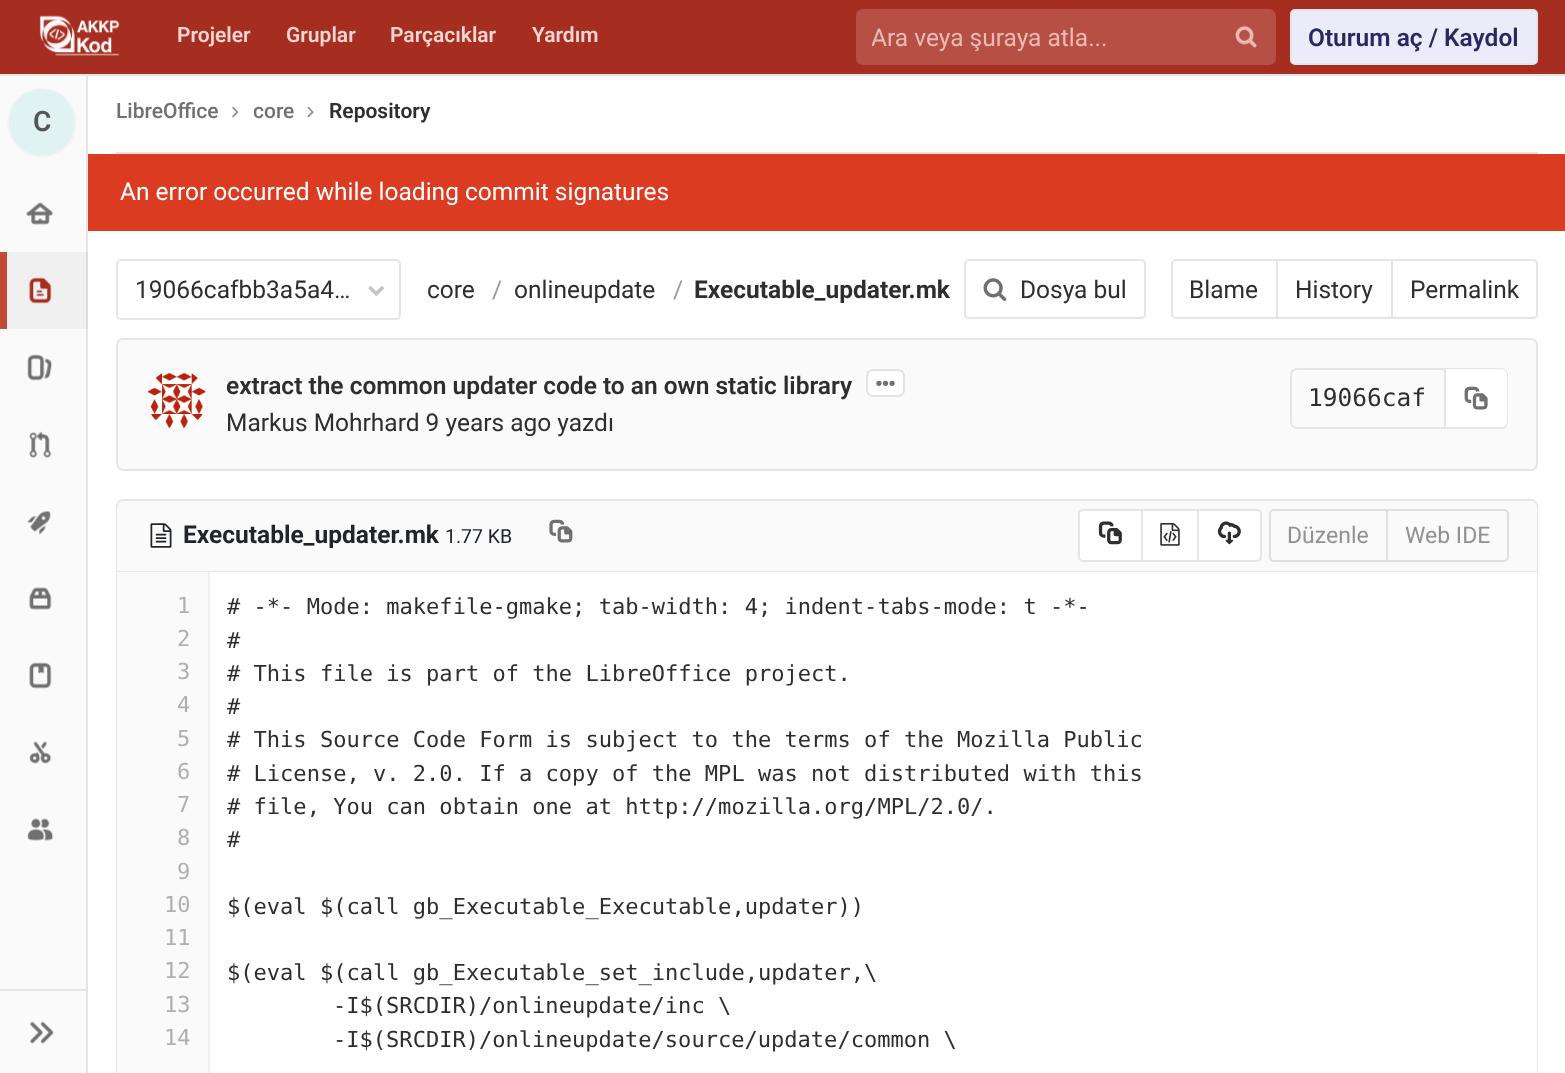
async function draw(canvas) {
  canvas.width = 1565
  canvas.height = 1073
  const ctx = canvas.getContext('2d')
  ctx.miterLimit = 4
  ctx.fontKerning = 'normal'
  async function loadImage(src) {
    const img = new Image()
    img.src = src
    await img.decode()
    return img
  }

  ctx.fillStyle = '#fff'
  ctx.fillRect(0, 0, 1565, 1073)
  ctx.fillStyle = '#e5e5e5'
  ctx.fillRect(86, 70, 2, 1003)
  ctx.fillStyle = '#a62e21'
  ctx.fillRect(0, 0, 1565, 74)
  ctx.fillStyle = '#e5e5e5'
  ctx.fillRect(0, 74, 1565, 2)
  ctx.drawImage(await loadImage('image0.png'), 39, 15, 81, 41)
  ctx.font = '600 21px Roboto'
  ctx.fillStyle = '#f7d5d0'
  ctx.fillText('Projeler', 177, 42)
  ctx.fillText('Gruplar', 286, 42)
  ctx.fillText('Parçacıklar', 390, 42)
  ctx.fillText('Yardım', 532, 42)
  ctx.fillStyle = '#b64f44'
  ctx.beginPath()
  ctx.roundRect(856, 9, 420, 56, 7)
  ctx.fill()
  ctx.save()
  ctx.beginPath()
  ctx.rect(872, 23, 306, 28)
  ctx.clip()
  ctx.font = '24.5px Roboto'
  ctx.fillStyle = '#eabab4'
  ctx.fillText('Ara veya şuraya atla...', 871, 46)
  ctx.restore()
  ctx.drawImage(await loadImage('image1.png'), 1235, 25, 22, 23)
  ctx.fillStyle = '#ebebfa'
  ctx.beginPath()
  ctx.roundRect(1291, 10, 246, 54, 4)
  ctx.fill()
  ctx.strokeStyle = '#e5e5e5'
  ctx.lineWidth = 2
  ctx.stroke()
  ctx.font = '600 24.5px Roboto'
  ctx.fillStyle = '#292961'
  ctx.fillText('Oturum aç / Kaydol', 1308, 46)
  ctx.fillStyle = '#fafafa'
  ctx.fillRect(0, 76, 86, 997)
  ctx.fillStyle = '#f0f0f0'
  ctx.fillRect(7, 252, 79, 77)
  ctx.fillStyle = '#dcdcdc'
  ctx.fillRect(86, 252, 2, 77)
  ctx.beginPath()
  ctx.arc(42, 123, 34, 0, 2 * Math.PI)
  ctx.strokeStyle = '#f5f5f5'
  ctx.stroke()
  ctx.fillStyle = '#e0f2f1'
  ctx.beginPath()
  ctx.roundRect(9, 89, 66, 67, 33)
  ctx.fill()
  ctx.font = '600 28px Roboto'
  ctx.fillStyle = '#555'
  ctx.fillText('C', 33, 131)
  ctx.drawImage(await loadImage('image2.png'), 26, 202, 28, 23)
  ctx.fillStyle = '#c24b38'
  ctx.fillRect(0, 252, 7, 77)
  ctx.drawImage(await loadImage('image3.png'), 29, 277, 23, 27)
  ctx.drawImage(await loadImage('image4.png'), 27, 354, 25, 27)
  ctx.drawImage(await loadImage('image5.png'), 29, 431, 23, 27)
  ctx.drawImage(await loadImage('image6.png'), 27, 511, 24, 24)
  ctx.drawImage(await loadImage('image7.png'), 29, 587, 23, 23)
  ctx.drawImage(await loadImage('image8.png'), 29, 662, 23, 27)
  ctx.drawImage(await loadImage('image9.png'), 29, 741, 23, 23)
  ctx.drawImage(await loadImage('image10.png'), 27, 818, 27, 23)
  ctx.fillStyle = '#e5e5e5'
  ctx.fillRect(0, 989, 86, 2)
  ctx.drawImage(await loadImage('image11.png'), 30, 1021, 24, 23)
  ctx.fillRect(116, 152, 1422, 2)
  ctx.font = '500 21px Roboto'
  ctx.fillStyle = '#707070'
  ctx.fillText('LibreOffice', 116, 118)
  ctx.drawImage(await loadImage('image12.png'), 232, 106, 7, 12)
  ctx.save()
  ctx.beginPath()
  ctx.rect(254, 98, 40, 28)
  ctx.clip()
  ctx.fillText('core', 253, 118)
  ctx.restore()
  ctx.drawImage(await loadImage('image13.png'), 307, 106, 7, 12)
  ctx.font = '600 21px Roboto'
  ctx.fillStyle = '#2e2e2e'
  ctx.fillText('Repository', 329, 118)
  ctx.fillStyle = '#db3b21'
  ctx.fillRect(88, 154, 1477, 77)
  ctx.font = '24.5px Roboto'
  ctx.fillStyle = '#fff'
  ctx.fillText('An error occurred while loading commit signatures', 120, 200)
  ctx.beginPath()
  ctx.roundRect(117, 260, 283, 59, 4)
  ctx.strokeStyle = '#e5e5e5'
  ctx.stroke()
  ctx.fillStyle = '#2e2e2e'
  ctx.fillText('19066cafbb3a5a4…', 135, 298)
  ctx.drawImage(await loadImage('image14.png'), 368, 286, 16, 10)
  ctx.fillText('core', 427, 298)
  ctx.fillStyle = '#999'
  ctx.fillText('/', 492, 298)
  ctx.fillStyle = '#2e2e2e'
  ctx.fillText('onlineupdate', 514, 298)
  ctx.fillStyle = '#999'
  ctx.fillText('/', 673, 298)
  ctx.font = 'bold 24.5px Roboto'
  ctx.fillStyle = '#2e2e2e'
  ctx.fillText('Executable_updater.mk', 694, 298)
  ctx.beginPath()
  ctx.roundRect(965, 260, 180, 58, 4)
  ctx.stroke()
  ctx.drawImage(await loadImage('image15.png'), 983, 278, 24, 23)
  ctx.font = '24.5px Roboto'
  ctx.fillText('Dosya bul', 1020, 298)
  ctx.beginPath()
  ctx.roundRect(1172, 260, 105, 58, [4, 0, 0, 4])
  ctx.stroke()
  ctx.fillText('Blame', 1189, 298)
  ctx.strokeRect(1277, 260, 115, 58)
  ctx.fillText('History', 1295, 298)
  ctx.fillStyle = '#fff'
  ctx.beginPath()
  ctx.roundRect(1392, 260, 145, 58, [0, 4, 4, 0])
  ctx.fill()
  ctx.stroke()
  ctx.fillStyle = '#2e2e2e'
  ctx.fillText('Permalink', 1410, 298)
  ctx.fillStyle = '#fafafa'
  ctx.beginPath()
  ctx.roundRect(117, 339, 1420, 131, 6)
  ctx.fill()
  ctx.stroke()
  ctx.fillStyle = '#fdfdfd'
  ctx.beginPath()
  ctx.arc(176.5, 399.5, 30.5, 0, 2 * Math.PI)
  ctx.fill()
  ctx.strokeStyle = '#f5f5f5'
  ctx.stroke()
  ctx.drawImage(await loadImage('image16.png'), 147, 369, 59, 59)
  ctx.font = '600 24.5px Roboto'
  ctx.fillStyle = '#2e2e2e'
  ctx.fillText('extract the common updater code to an own static library', 226, 394)
  ctx.fillStyle = '#fff'
  ctx.beginPath()
  ctx.roundRect(867, 370, 37, 26, 6)
  ctx.fill()
  ctx.strokeStyle = '#e3e3e3'
  ctx.stroke()
  ctx.drawImage(await loadImage('image17.png'), 876, 380, 19, 6)
  ctx.font = '24.5px Roboto'
  ctx.fillStyle = '#2e2e2e'
  ctx.fillText('Markus Mohrhard 9 years ago yazdı', 226, 431)
  ctx.beginPath()
  ctx.roundRect(1291, 369, 154, 59, [6, 0, 0, 6])
  ctx.strokeStyle = '#e5e5e5'
  ctx.stroke()
  ctx.font = '24.5px DejaVu Sans Mono'
  ctx.fillText('19066caf', 1308, 406)
  ctx.fillStyle = '#fff'
  ctx.beginPath()
  ctx.roundRect(1446, 368, 63, 61, [0, 7, 7, 0])
  ctx.fill()
  ctx.fillStyle = '#e5e5e5'
  ctx.beginPath()
  ctx.moveTo(1446, 368)
  ctx.lineTo(1502, 368)
  ctx.bezierCurveTo(1505, 368, 1508, 371, 1508, 374)
  ctx.lineTo(1508, 422)
  ctx.bezierCurveTo(1508, 426, 1505, 429, 1502, 429)
  ctx.lineTo(1446, 429)
  ctx.closePath()
  ctx.moveTo(1446, 369)
  ctx.lineTo(1502, 369)
  ctx.bezierCurveTo(1504, 369, 1507, 372, 1507, 374)
  ctx.lineTo(1507, 422)
  ctx.bezierCurveTo(1507, 425, 1504, 427, 1502, 427)
  ctx.lineTo(1446, 427)
  ctx.closePath()
  ctx.fill('evenodd')
  ctx.drawImage(await loadImage('image18.png'), 1464, 386, 24, 24)
  ctx.beginPath()
  ctx.roundRect(117, 500, 1420, 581, 6)
  ctx.stroke()
  ctx.fillStyle = '#fafafa'
  ctx.beginPath()
  ctx.roundRect(117, 501, 1420, 71, [7, 7, 0, 0])
  ctx.fill()
  ctx.fillStyle = '#e5e5e5'
  ctx.fillRect(117, 571, 1420, 1)
  ctx.drawImage(await loadImage('image19.png'), 150, 523, 22, 25)
  ctx.font = 'bold 24.5px Roboto'
  ctx.fillStyle = '#212529'
  ctx.fillText('Executable_updater.mk', 183, 543)
  ctx.font = '19.5px Roboto'
  ctx.fillText('1.77 KB', 445, 543)
  ctx.drawImage(await loadImage('image20.png'), 549, 519, 24, 24)
  ctx.fillStyle = '#fff'
  ctx.beginPath()
  ctx.roundRect(1079, 510, 63, 51, [4, 0, 0, 4])
  ctx.fill()
  ctx.stroke()
  ctx.drawImage(await loadImage('image21.png'), 1098, 521, 24, 24)
  ctx.beginPath()
  ctx.rect(1142, 510, 56, 51)
  ctx.fill()
  ctx.stroke()
  ctx.drawImage(await loadImage('image22.png'), 1160, 523, 20, 23)
  ctx.beginPath()
  ctx.roundRect(1198, 510, 63, 51, [0, 4, 4, 0])
  ctx.fill()
  ctx.stroke()
  ctx.drawImage(await loadImage('image23.png'), 1217, 521, 24, 24)
  ctx.beginPath()
  ctx.roundRect(1270, 510, 117, 51, [4, 0, 0, 4])
  ctx.strokeStyle = '#dfdfdf'
  ctx.stroke()
  ctx.font = '23px Roboto'
  ctx.fillStyle = '#919191'
  ctx.fillText('Düzenle', 1287, 543)
  ctx.fillStyle = '#fafafa'
  ctx.beginPath()
  ctx.roundRect(1387, 510, 121, 51, [0, 4, 4, 0])
  ctx.fill()
  ctx.stroke()
  ctx.fillStyle = '#919191'
  ctx.fillText('Web IDE', 1405, 543)
  ctx.fillStyle = '#fff'
  ctx.fillRect(1536, 572, 1, 501)
  ctx.fillStyle = '#fafafa'
  ctx.fillRect(117, 572, 91, 501)
  ctx.font = '22.05px DejaVu Sans Mono'
  ctx.fillStyle = '#afafaf'
  ctx.fillText('1', 177, 613)
  ctx.fillText('2', 177, 646)
  ctx.fillText('3', 177, 679)
  ctx.fillText('4', 177, 712)
  ctx.fillText('5', 177, 746)
  ctx.fillText('6', 177, 779)
  ctx.fillText('7', 177, 812)
  ctx.fillText('8', 177, 845)
  ctx.fillText('9', 177, 879)
  ctx.fillText('10', 164, 912)
  ctx.fillText('11', 164, 945)
  ctx.fillText('12', 164, 978)
  ctx.fillText('13', 164, 1012)
  ctx.fillText('14', 164, 1045)
  ctx.fillStyle = '#f0f0f0'
  ctx.fillRect(208, 572, 2, 501)
  ctx.fillStyle = '#2e2e2e'
  ctx.fillText('# -*- Mode: makefile-gmake; tab-width: 4; indent-tabs-mode: t -*-', 227, 614)
  ctx.fillText('#', 227, 648)
  ctx.fillText('# This file is part of the LibreOffice project.', 227, 681)
  ctx.fillText('#', 227, 714)
  ctx.fillText('# This Source Code Form is subject to the terms of the Mozilla Public', 227, 747)
  ctx.fillText('# License, v. 2.0. If a copy of the MPL was not distributed with this', 227, 781)
  ctx.fillText('# file, You can obtain one at http://mozilla.org/MPL/2.0/.', 227, 814)
  ctx.fillText('#', 227, 847)
  ctx.fillText('$(eval $(call gb_Executable_Executable,updater))', 227, 914)
  ctx.fillText('$(eval $(call gb_Executable_set_include,updater,\\', 227, 980)
  ctx.fillText('-I$(SRCDIR)/onlineupdate/inc \\', 333, 1013)
  ctx.fillText('-I$(SRCDIR)/onlineupdate/source/update/common \\', 333, 1047)
}

draw(document.querySelector('canvas'))
